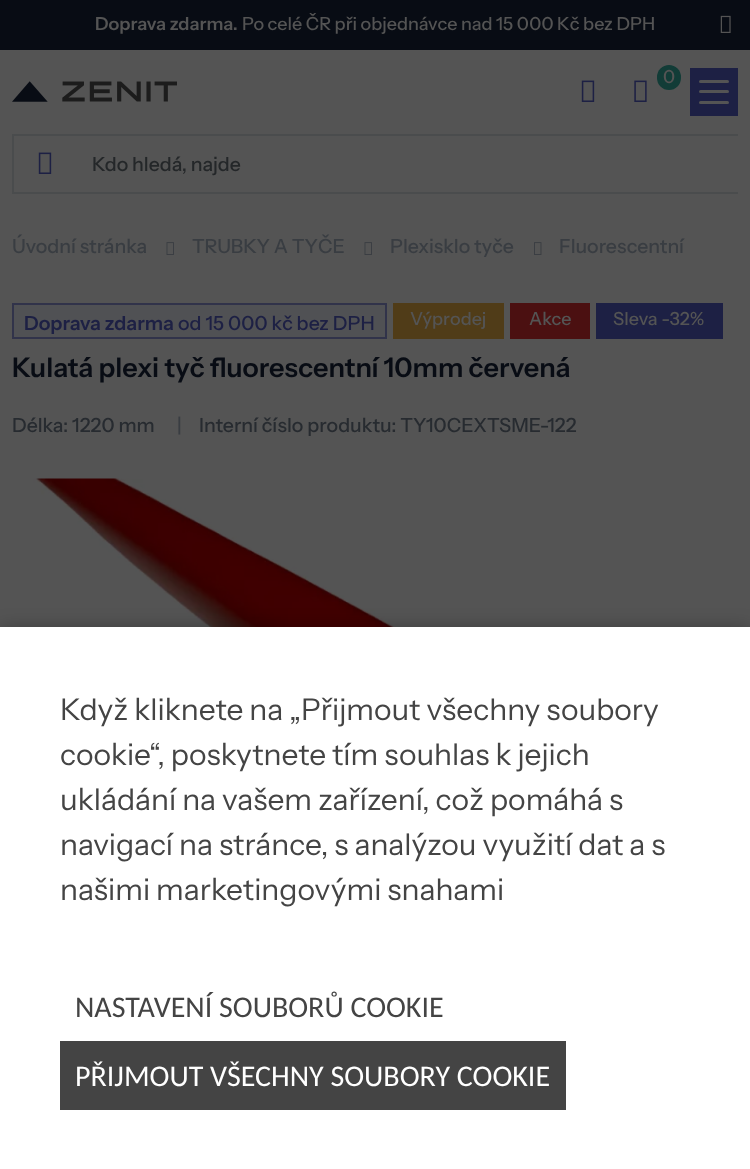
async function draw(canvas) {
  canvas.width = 750
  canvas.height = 1169
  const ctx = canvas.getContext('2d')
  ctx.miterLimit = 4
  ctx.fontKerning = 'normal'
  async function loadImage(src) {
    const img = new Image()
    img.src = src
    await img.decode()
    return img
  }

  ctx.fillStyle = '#545454'
  ctx.fillRect(0, 0, 750, 1169)
  ctx.fillStyle = '#080c14'
  ctx.fillRect(0, 0, 750, 50)
  ctx.font = '600 18px Instrument Sans'
  ctx.fillStyle = '#545454'
  ctx.fillText('Doprava zdarma.', 95, 30)
  ctx.font = '500 18px Instrument Sans'
  ctx.fillText('Po celé ČR při objednávce nad 15 000 Kč bez DPH', 242, 30)
  ctx.drawImage(await loadImage('image0.png'), 720, 15, 11, 18)
  ctx.drawImage(await loadImage('image1.png'), 12, 81, 165, 21)
  ctx.drawImage(await loadImage('image2.png'), 581, 80, 14, 22)
  ctx.fillStyle = '#1d2044'
  ctx.fillRect(690, 68, 48, 48)
  ctx.fillStyle = '#545454'
  ctx.beginPath()
  ctx.roundRect(699, 80, 30, 3, 1.5)
  ctx.fill()
  ctx.beginPath()
  ctx.roundRect(699, 90, 30, 3, 1.5)
  ctx.fill()
  ctx.beginPath()
  ctx.roundRect(699, 101, 30, 3, 1.5)
  ctx.fill()
  ctx.fillStyle = '#123c37'
  ctx.beginPath()
  ctx.roundRect(657, 65, 24, 25, 12)
  ctx.fill()
  ctx.fillStyle = '#545454'
  ctx.fillText('0', 663, 83)
  ctx.drawImage(await loadImage('image3.png'), 634, 80, 13, 22)
  ctx.drawImage(await loadImage('image2.png'), 38, 152, 14, 22)
  ctx.fillStyle = '#4a4c4d'
  ctx.fillRect(12, 134, 726, 2)
  ctx.fillRect(12, 192, 726, 2)
  ctx.fillRect(12, 134, 2, 60)
  ctx.font = '500 19.5px Instrument Sans'
  ctx.fillStyle = '#242729'
  ctx.fillText('Kdo hledá, najde', 92, 171)
  ctx.fillStyle = '#393d42'
  ctx.fillText('Úvodní stránka', 12, 253)
  ctx.drawImage(await loadImage('image4.png'), 166, 242, 8, 13)
  ctx.fillText('TRUBKY A TYČE', 192, 253)
  ctx.drawImage(await loadImage('image4.png'), 364, 242, 8, 13)
  ctx.fillText('Plexisklo tyče', 390, 253)
  ctx.drawImage(await loadImage('image5.png'), 534, 242, 8, 13)
  ctx.fillText('Fluorescentní', 559, 253)
  ctx.fillStyle = '#505154'
  ctx.beginPath()
  ctx.rect(13, 304, 373, 34)
  ctx.fill()
  ctx.strokeStyle = '#31334a'
  ctx.lineWidth = 2
  ctx.stroke()
  ctx.font = '600 19.5px Instrument Sans'
  ctx.fillStyle = '#1d2044'
  ctx.fillText('Doprava zdarma', 24, 330)
  ctx.font = '500 19.5px Instrument Sans'
  ctx.fillText('od 15 000 kč bez DPH', 178, 330)
  ctx.fillStyle = '#503c18'
  ctx.fillRect(393, 303, 111, 36)
  ctx.font = '500 18px Instrument Sans'
  ctx.fillStyle = '#545454'
  ctx.fillText('Výprodej', 410, 325)
  ctx.fillStyle = '#4b1011'
  ctx.fillRect(510, 303, 80, 36)
  ctx.fillStyle = '#545454'
  ctx.fillText('Akce', 529, 325)
  ctx.fillStyle = '#1d2044'
  ctx.fillRect(596, 303, 127, 36)
  ctx.fillStyle = '#545454'
  ctx.fillText('Sleva -32%', 613, 325)
  ctx.font = '600 27px Instrument Sans'
  ctx.fillStyle = '#080c14'
  ctx.fillText('Kulatá plexi tyč fluorescentní 10mm červená', 12, 377)
  ctx.font = '500 19.5px Instrument Sans'
  ctx.fillStyle = '#272b30'
  ctx.fillText('Délka: 1220 mm', 12, 432)
  ctx.fillStyle = '#393d42'
  ctx.fillText('|', 177, 432)
  ctx.fillStyle = '#272b30'
  ctx.fillText('Interní číslo produktu: TY10CEXTSME-122', 199, 432)
  ctx.drawImage(await loadImage('image6.png'), 33, 478, 597, 149)
  ctx.fillStyle = '#00000040'
  ctx.filter = 'blur(9px)'
  ctx.beginPath()
  ctx.rect(0, 627, 750, 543)
  ctx.fill()
  ctx.filter = 'none'
  ctx.fillStyle = '#fff'
  ctx.fillRect(0, 627, 750, 542)
  ctx.font = '30px Instrument Sans'
  ctx.fillStyle = '#444'
  ctx.fillText('Když kliknete na „Přijmout všechny soubory', 60, 720)
  ctx.fillText('cookie“, poskytnete tím souhlas k jejich', 60, 765)
  ctx.fillText('ukládání na vašem zařízení, což pomáhá s', 60, 810)
  ctx.fillText('navigací na stránce, s analýzou využití dat a s', 60, 855)
  ctx.fillText('našimi marketingovými snahami', 60, 900)
  ctx.font = '30px Carlito'
  ctx.fillText('NASTAVENÍ SOUBORŮ COOKIE', 75, 1017)
  ctx.fillRect(60, 1041, 506, 69)
  ctx.fillStyle = '#fff'
  ctx.fillText('PŘIJMOUT VŠECHNY SOUBORY COOKIE', 75, 1086)
}

draw(document.querySelector('canvas'))
